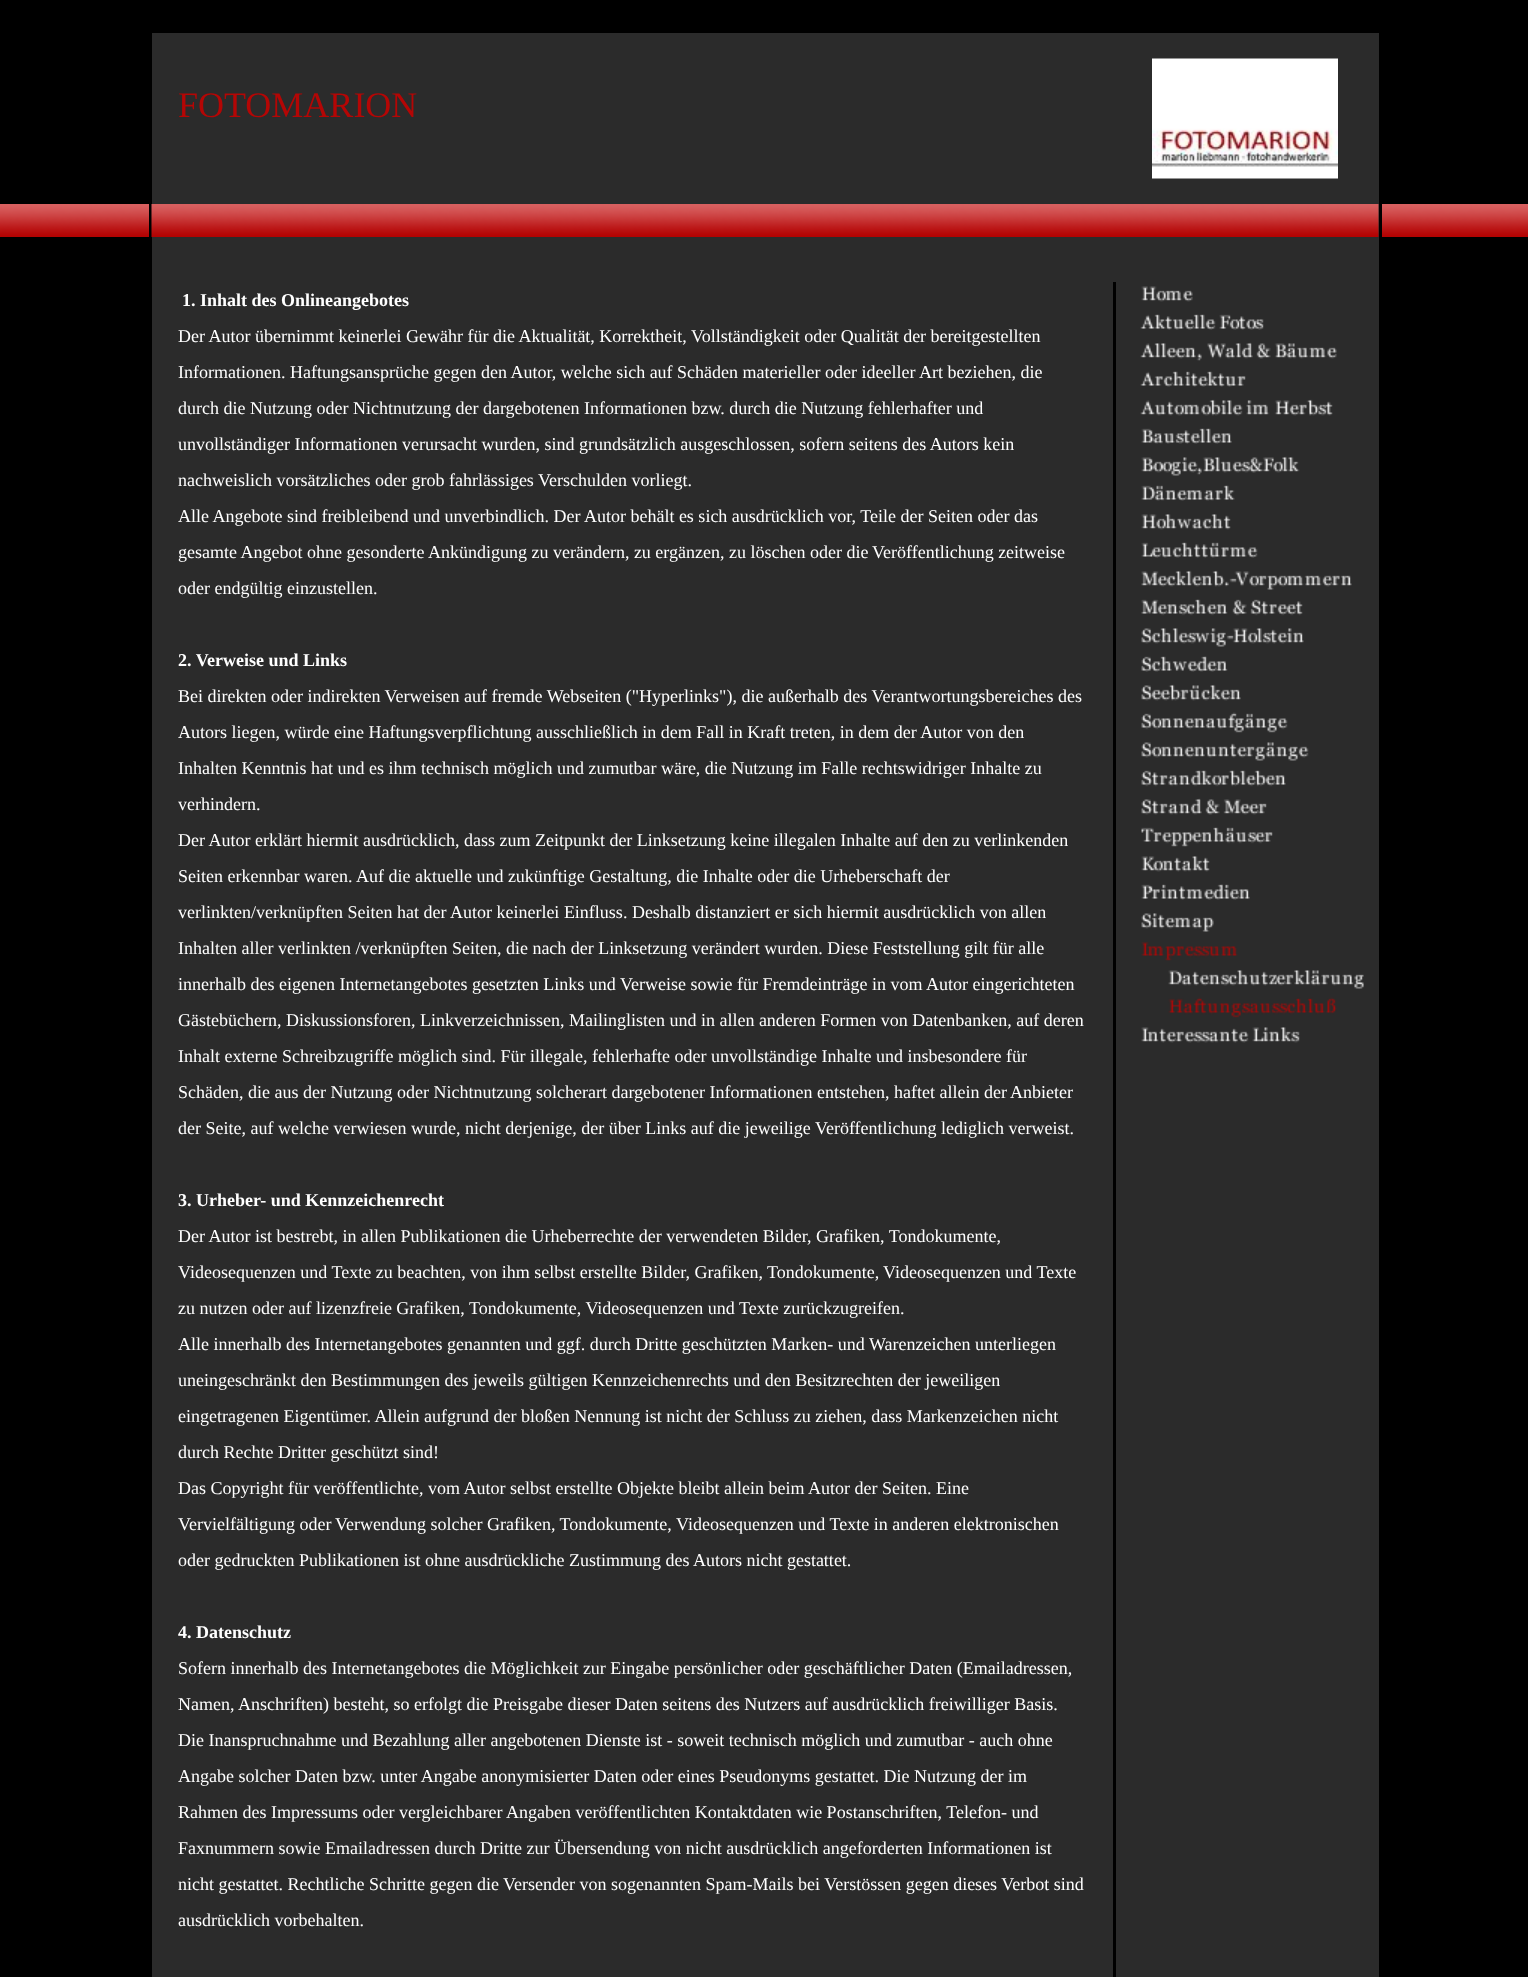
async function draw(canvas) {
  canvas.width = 1528
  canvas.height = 1977
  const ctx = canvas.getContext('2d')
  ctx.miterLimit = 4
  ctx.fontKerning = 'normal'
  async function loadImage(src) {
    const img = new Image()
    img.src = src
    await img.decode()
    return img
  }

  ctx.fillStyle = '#000'
  ctx.fillRect(0, 0, 1528, 1977)
  ctx.drawImage(await loadImage('image0.png'), 0, 204, 1528, 33)
  ctx.fillStyle = '#2b2b2b'
  ctx.fillRect(152, 33, 1227, 1944)
  ctx.fillStyle = '#000'
  ctx.fillRect(1379, 204, 3, 33)
  ctx.fillRect(149, 204, 3, 33)
  ctx.font = '36px Liberation Serif'
  ctx.fillStyle = '#b40605'
  ctx.fillText('FOTOMARION', 178, 117)
  ctx.drawImage(await loadImage('image1.png'), 1152, 58, 186, 121)
  ctx.drawImage(await loadImage('image2.png'), 151, 204, 1228, 33)
  ctx.font = 'bold 18px Liberation Serif'
  ctx.fillStyle = '#fff'
  ctx.fillText('1. Inhalt des Onlineangebotes', 182, 306)
  ctx.font = '18px Liberation Serif'
  ctx.fillText('Der Autor übernimmt keinerlei Gewähr für die Aktualität, Korrektheit,', 178, 342)
  ctx.fillText('Vollständigkeit oder Qualität der bereitgestellten', 691, 342)
  ctx.fillText('Informationen. Haftungsansprüche gegen den Autor, welche sich auf Schäden materieller oder ideeller Art beziehen, die', 178, 378)
  ctx.fillText('durch die Nutzung oder Nichtnutzung der dargebotenen Informationen bzw. durch die Nutzung fehlerhafter und', 178, 414)
  ctx.fillText('unvollständiger Informationen verursacht wurden, sind grundsätzlich ausgeschlossen, sofern seitens des Autors kein', 178, 450)
  ctx.fillText('nachweislich vorsätzliches oder grob fahrlässiges Verschulden vorliegt.', 178, 486)
  ctx.fillText('Alle Angebote sind freibleibend und unverbindlich. Der Autor behält es sich ausdrücklich vor, Teile der Seiten oder das', 178, 522)
  ctx.fillText('gesamte Angebot ohne gesonderte Ankündigung zu verändern, zu ergänzen, zu löschen oder die', 178, 558)
  ctx.fillText('Veröffentlichung zeitweise', 872, 558)
  ctx.fillText('oder endgültig einzustellen.', 178, 594)
  ctx.font = 'bold 18px Liberation Serif'
  ctx.fillText('2. Verweise und Links', 178, 666)
  ctx.font = '18px Liberation Serif'
  ctx.fillText('Bei direkten oder indirekten Verweisen auf fremde Webseiten ("Hyperlinks"), die außerhalb des Verantwortungsbereiches des', 178, 702)
  ctx.fillText('Autors liegen, würde eine Haftungsverpflichtung ausschließlich in dem Fall in Kraft treten, in dem der Autor von den', 178, 738)
  ctx.fillText('Inhalten Kenntnis hat und es ihm technisch möglich und zumutbar wäre, die Nutzung im Falle rechtswidriger Inhalte zu', 178, 774)
  ctx.fillText('verhindern.', 178, 810)
  ctx.fillText('Der Autor erklärt hiermit ausdrücklich, dass zum Zeitpunkt der Linksetzung keine illegalen Inhalte auf den zu verlinkenden', 178, 846)
  ctx.fillText('Seiten erkennbar waren. Auf die aktuelle und zukünftige Gestaltung, die Inhalte oder die Urheberschaft der', 178, 882)
  ctx.fillText('verlinkten/verknüpften Seiten hat der Autor keinerlei Einfluss. Deshalb distanziert er sich hiermit ausdrücklich von allen', 178, 918)
  ctx.fillText('Inhalten aller verlinkten /verknüpften Seiten, die nach der Linksetzung verändert wurden. Diese Feststellung gilt für alle', 178, 954)
  ctx.fillText('innerhalb des eigenen Internetangebotes gesetzten Links und Verweise sowie für Fremdeinträge in vom Autor eingerichteten', 178, 990)
  ctx.fillText('Gästebüchern, Diskussionsforen, Linkverzeichnissen, Mailinglisten und in allen anderen Formen von Datenbanken, auf deren', 178, 1026)
  ctx.fillText('Inhalt externe Schreibzugriffe möglich sind. Für illegale, fehlerhafte oder unvollständige Inhalte und insbesondere für', 178, 1062)
  ctx.fillText('Schäden, die aus der Nutzung oder Nichtnutzung', 178, 1098)
  ctx.fillText('solcherart dargebotener Informationen entstehen, haftet allein der', 536, 1098)
  ctx.fillText('Anbieter', 1010, 1098)
  ctx.fillText('der Seite, auf welche verwiesen wurde, nicht derjenige, der über Links auf die jeweilige Veröffentlichung lediglich verweist.', 178, 1134)
  ctx.font = 'bold 18px Liberation Serif'
  ctx.fillText('3. Urheber- und Kennzeichenrecht', 178, 1206)
  ctx.font = '18px Liberation Serif'
  ctx.fillText('Der Autor ist bestrebt, in allen Publikationen die Urheberrechte der verwendeten Bilder, Grafiken, Tondokumente,', 178, 1242)
  ctx.fillText('Videosequenzen und Texte zu beachten, von ihm selbst erstellte Bilder, Grafiken, Tondokumente,', 178, 1278)
  ctx.fillText('Videosequenzen und Texte', 883, 1278)
  ctx.fillText('zu nutzen oder auf lizenzfreie Grafiken,', 178, 1314)
  ctx.fillText('Tondokumente, Videosequenzen und Texte zurückzugreifen.', 469, 1314)
  ctx.fillText('Alle innerhalb des Internetangebotes genannten und ggf. durch Dritte geschützten Marken- und Warenzeichen unterliegen', 178, 1350)
  ctx.fillText('uneingeschränkt den Bestimmungen des jeweils gültigen Kennzeichenrechts und den Besitzrechten der jeweiligen', 178, 1386)
  ctx.fillText('eingetragenen Eigentümer. Allein aufgrund der bloßen Nennung ist nicht der Schluss zu ziehen, dass Markenzeichen nicht', 178, 1422)
  ctx.fillText('durch Rechte Dritter geschützt sind!', 178, 1458)
  ctx.fillText('Das Copyright für veröffentlichte, vom Autor selbst erstellte Objekte bleibt allein beim Autor der Seiten. Eine', 178, 1494)
  ctx.fillText('Vervielfältigung oder', 178, 1530)
  ctx.fillText('Verwendung solcher Grafiken, Tondokumente, Videosequenzen und Texte in anderen elektronischen', 335, 1530)
  ctx.fillText('oder gedruckten Publikationen ist ohne ausdrückliche Zustimmung des Autors nicht gestattet.', 178, 1566)
  ctx.font = 'bold 18px Liberation Serif'
  ctx.fillText('4. Datenschutz', 178, 1638)
  ctx.font = '18px Liberation Serif'
  ctx.fillText('Sofern innerhalb des Internetangebotes die Möglichkeit zur Eingabe persönlicher oder geschäftlicher Daten (Emailadressen,', 178, 1674)
  ctx.fillText('Namen,', 178, 1710)
  ctx.fillText('Anschriften) besteht, so erfolgt die Preisgabe dieser Daten seitens des Nutzers auf ausdrücklich freiwilliger Basis.', 238, 1710)
  ctx.fillText('Die Inanspruchnahme und Bezahlung aller angebotenen Dienste ist - soweit technisch möglich und zumutbar - auch ohne', 178, 1746)
  ctx.fillText('Angabe solcher Daten bzw. unter Angabe anonymisierter Daten oder eines Pseudonyms gestattet. Die Nutzung der im', 178, 1782)
  ctx.fillText('Rahmen des Impressums oder vergleichbarer Angaben veröffentlichten Kontaktdaten wie Postanschriften, Telefon- und', 178, 1818)
  ctx.fillText('Faxnummern sowie Emailadressen durch Dritte zur Übersendung von nicht ausdrücklich angeforderten Informationen ist', 178, 1854)
  ctx.fillText('nicht gestattet. Rechtliche Schritte gegen die Versender von sogenannten Spam-Mails bei Verstössen gegen dieses Verbot sind', 178, 1890)
  ctx.fillText('ausdrücklich vorbehalten.', 178, 1926)
  ctx.fillStyle = '#000'
  ctx.fillRect(1113, 282, 3, 1695)
  ctx.drawImage(await loadImage('image3.png'), 1141, 286, 52, 16)
  ctx.drawImage(await loadImage('image4.png'), 1140, 314, 124, 16)
  ctx.drawImage(await loadImage('image5.png'), 1140, 342, 197, 19)
  ctx.drawImage(await loadImage('image6.png'), 1140, 371, 106, 16)
  ctx.drawImage(await loadImage('image7.png'), 1140, 399, 193, 17)
  ctx.drawImage(await loadImage('image8.png'), 1141, 428, 91, 16)
  ctx.drawImage(await loadImage('image9.png'), 1141, 456, 159, 20)
  ctx.drawImage(await loadImage('image10.png'), 1141, 485, 94, 16)
  ctx.drawImage(await loadImage('image11.png'), 1141, 514, 90, 16)
  ctx.drawImage(await loadImage('image12.png'), 1141, 542, 117, 16)
  ctx.drawImage(await loadImage('image13.png'), 1141, 570, 211, 20)
  ctx.drawImage(await loadImage('image14.png'), 1141, 599, 162, 17)
  ctx.drawImage(await loadImage('image15.png'), 1141, 628, 163, 19)
  ctx.drawImage(await loadImage('image16.png'), 1141, 656, 87, 16)
  ctx.drawImage(await loadImage('image17.png'), 1141, 684, 100, 17)
  ctx.drawImage(await loadImage('image18.png'), 1141, 712, 147, 21)
  ctx.drawImage(await loadImage('image19.png'), 1141, 742, 168, 19)
  ctx.drawImage(await loadImage('image20.png'), 1141, 770, 145, 17)
  ctx.drawImage(await loadImage('image21.png'), 1141, 798, 126, 17)
  ctx.drawImage(await loadImage('image22.png'), 1141, 827, 132, 20)
  ctx.drawImage(await loadImage('image23.png'), 1141, 856, 69, 16)
  ctx.drawImage(await loadImage('image24.png'), 1141, 884, 109, 16)
  ctx.drawImage(await loadImage('image25.png'), 1141, 913, 73, 19)
  ctx.drawImage(await loadImage('image26.png'), 1141, 942, 97, 19)
  ctx.drawImage(await loadImage('image27.png'), 1168, 970, 196, 19)
  ctx.drawImage(await loadImage('image28.png'), 1168, 997, 169, 21)
  ctx.drawImage(await loadImage('image29.png'), 1141, 1027, 159, 16)
}

draw(document.querySelector('canvas'))
